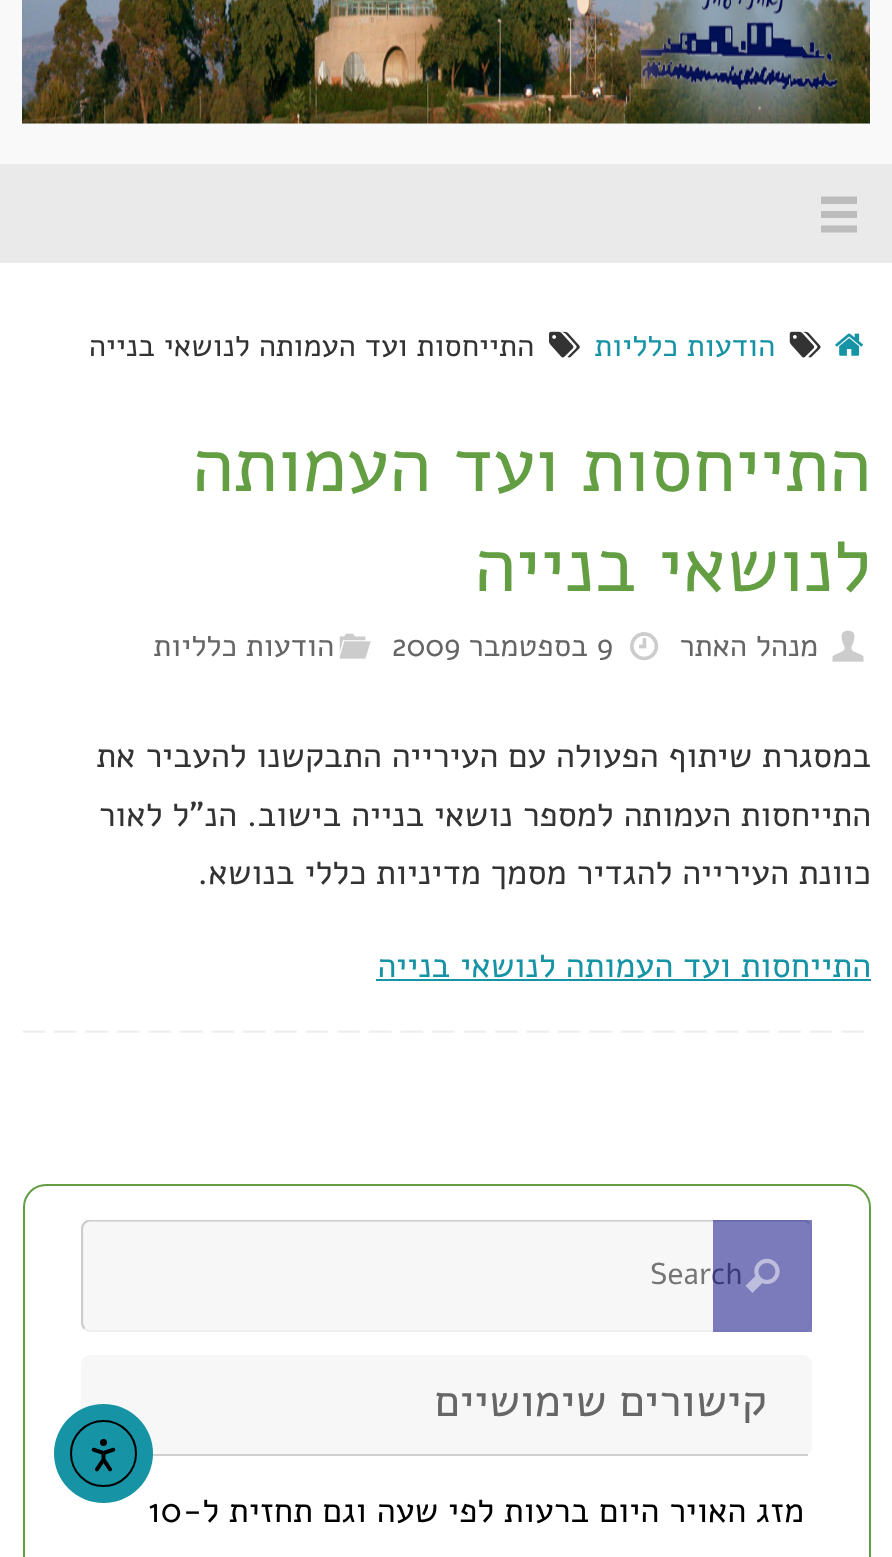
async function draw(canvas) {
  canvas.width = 892
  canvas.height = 1557
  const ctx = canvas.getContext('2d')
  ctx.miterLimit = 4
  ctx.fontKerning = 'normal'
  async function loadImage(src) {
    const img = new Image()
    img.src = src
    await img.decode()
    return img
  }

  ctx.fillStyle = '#f9f9f9'
  ctx.fillRect(0, 0, 892, 1557)
  ctx.drawImage(await loadImage('image0.png'), 22, 0, 848, 124)
  ctx.fillStyle = '#eaeaea'
  ctx.fillRect(0, 164, 892, 99)
  ctx.fillStyle = '#bcbcbc'
  ctx.beginPath()
  ctx.moveTo(821, 196.5)
  ctx.lineTo(821, 204)
  ctx.lineTo(857, 204)
  ctx.lineTo(857, 196.5)
  ctx.closePath()
  ctx.moveTo(821, 211)
  ctx.lineTo(821, 218)
  ctx.lineTo(857, 218)
  ctx.lineTo(857, 211)
  ctx.closePath()
  ctx.moveTo(821, 225.5)
  ctx.lineTo(821, 232.5)
  ctx.lineTo(857, 232.5)
  ctx.lineTo(857, 225.5)
  ctx.closePath()
  ctx.fill()
  ctx.fillStyle = '#fff'
  ctx.fillRect(0, 263, 892, 1294)
  ctx.drawImage(await loadImage('image1.png'), 835, 333, 28, 23)
  ctx.drawImage(await loadImage('image2.png'), 789, 331, 32, 27)
  ctx.direction = 'rtl'
  ctx.font = '31px Alef'
  ctx.fillStyle = '#1693a5'
  ctx.fillText('הודעות כלליות', 775, 356)
  ctx.drawImage(await loadImage('image3.png'), 549, 331, 31, 27)
  ctx.fillStyle = '#333'
  ctx.fillText('התייחסות ועד העמותה לנושאי בנייה', 534, 356)
  ctx.font = '76.5px Alef'
  ctx.fillStyle = '#639e43'
  ctx.fillText('התייחסות ועד העמותה', 871, 491)
  ctx.fillText('לנושאי בנייה', 871, 591)
  ctx.drawImage(await loadImage('image4.png'), 832, 630, 32, 32)
  ctx.font = '31px Alef'
  ctx.fillStyle = '#666'
  ctx.fillText('מנהל האתר', 818, 656)
  ctx.drawImage(await loadImage('image5.png'), 630, 632, 29, 29)
  ctx.direction = 'ltr'
  ctx.fillText('9', 597, 656)
  ctx.direction = 'rtl'
  ctx.fillText('בספטמבר', 588, 656)
  ctx.direction = 'ltr'
  ctx.fillText('2009', 392, 656)
  ctx.drawImage(await loadImage('image6.png'), 339, 633, 32, 26)
  ctx.direction = 'rtl'
  ctx.fillText('הודעות כלליות', 334, 656)
  ctx.font = '34.4px Alef'
  ctx.fillStyle = '#333'
  ctx.fillText('במסגרת שיתוף הפעולה עם העירייה התבקשנו להעביר את', 871, 767)
  ctx.fillText('התייחסות העמותה למספר נושאי בנייה בישוב. הנ"ל לאור', 871, 826)
  ctx.fillText('כוונת העירייה להגדיר מסמך מדיניות כללי בנושא.', 871, 884)
  ctx.fillStyle = '#1693a5'
  ctx.fillText('התייחסות ועד העמותה לנושאי בנייה', 871, 977)
  ctx.fillRect(376, 979, 495, 2)
  ctx.drawImage(await loadImage('image7.png'), 23, 1030, 842, 3)
  ctx.beginPath()
  ctx.roundRect(24, 1185, 846, 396, 22)
  ctx.strokeStyle = '#639e43'
  ctx.lineWidth = 2
  ctx.stroke()
  ctx.fillStyle = '#f7f7f7'
  ctx.beginPath()
  ctx.roundRect(81, 1220, 731, 112, 9)
  ctx.fill()
  ctx.save()
  ctx.beginPath()
  ctx.rect(81, 1220, 731, 112)
  ctx.clip()
  ctx.beginPath()
  ctx.moveTo(809, 1223)
  ctx.bezierCurveTo(810.5, 1224.5, 811, 1226.5, 811, 1228.5)
  ctx.lineTo(811, 1323)
  ctx.bezierCurveTo(811, 1325, 810.5, 1327, 809, 1328.5)
  ctx.bezierCurveTo(807.5, 1330, 805.5, 1331, 803, 1331)
  ctx.lineTo(90, 1331)
  ctx.bezierCurveTo(88, 1331, 86, 1330, 84.5, 1328.5)
  ctx.strokeStyle = '#eee'
  ctx.lineWidth = 2.2
  ctx.stroke()
  ctx.beginPath()
  ctx.moveTo(84.5, 1328.5)
  ctx.bezierCurveTo(83, 1327, 82, 1325, 82, 1323)
  ctx.lineTo(82, 1228.5)
  ctx.bezierCurveTo(82, 1226.5, 83, 1224.5, 84.5, 1223)
  ctx.bezierCurveTo(86, 1221.5, 88, 1220.5, 90, 1220.5)
  ctx.lineTo(803, 1220.5)
  ctx.bezierCurveTo(805.5, 1220.5, 807.5, 1221.5, 809, 1223)
  ctx.strokeStyle = '#ccc'
  ctx.stroke()
  ctx.restore()
  ctx.direction = 'ltr'
  ctx.font = '30px Alef'
  ctx.fillStyle = '#757575'
  ctx.fillText('Search', 650, 1284)
  ctx.fillStyle = '#00008080'
  ctx.fillRect(713, 1220, 99, 112)
  ctx.drawImage(await loadImage('image8.png'), 745, 1258, 35, 35)
  ctx.fillStyle = '#f7f7f7'
  ctx.beginPath()
  ctx.roundRect(81, 1355, 731, 101, 9)
  ctx.fill()
  ctx.fillStyle = '#cfcfcf'
  ctx.fillRect(152, 1454, 656, 2)
  ctx.direction = 'rtl'
  ctx.font = '45px Alef'
  ctx.fillStyle = '#666'
  ctx.fillText('קישורים שימושיים', 767, 1416)
  ctx.font = '34.4px Alef'
  ctx.fillStyle = '#000'
  ctx.fillText('מזג האויר היום ברעות לפי שעה וגם תחזית ל-', 804, 1522)
  ctx.direction = 'ltr'
  ctx.fillText('10', 148, 1522)
  ctx.fillStyle = '#1693a5'
  ctx.beginPath()
  ctx.arc(103.5, 1453.5, 49.5, 0, 2 * Math.PI)
  ctx.fill()
  ctx.beginPath()
  ctx.arc(103.5, 1453.5, 32.5, 0, 2 * Math.PI)
  ctx.strokeStyle = '#000'
  ctx.stroke()
  ctx.drawImage(await loadImage('image9.png'), 91, 1438, 25, 34)
}

draw(document.querySelector('canvas'))
